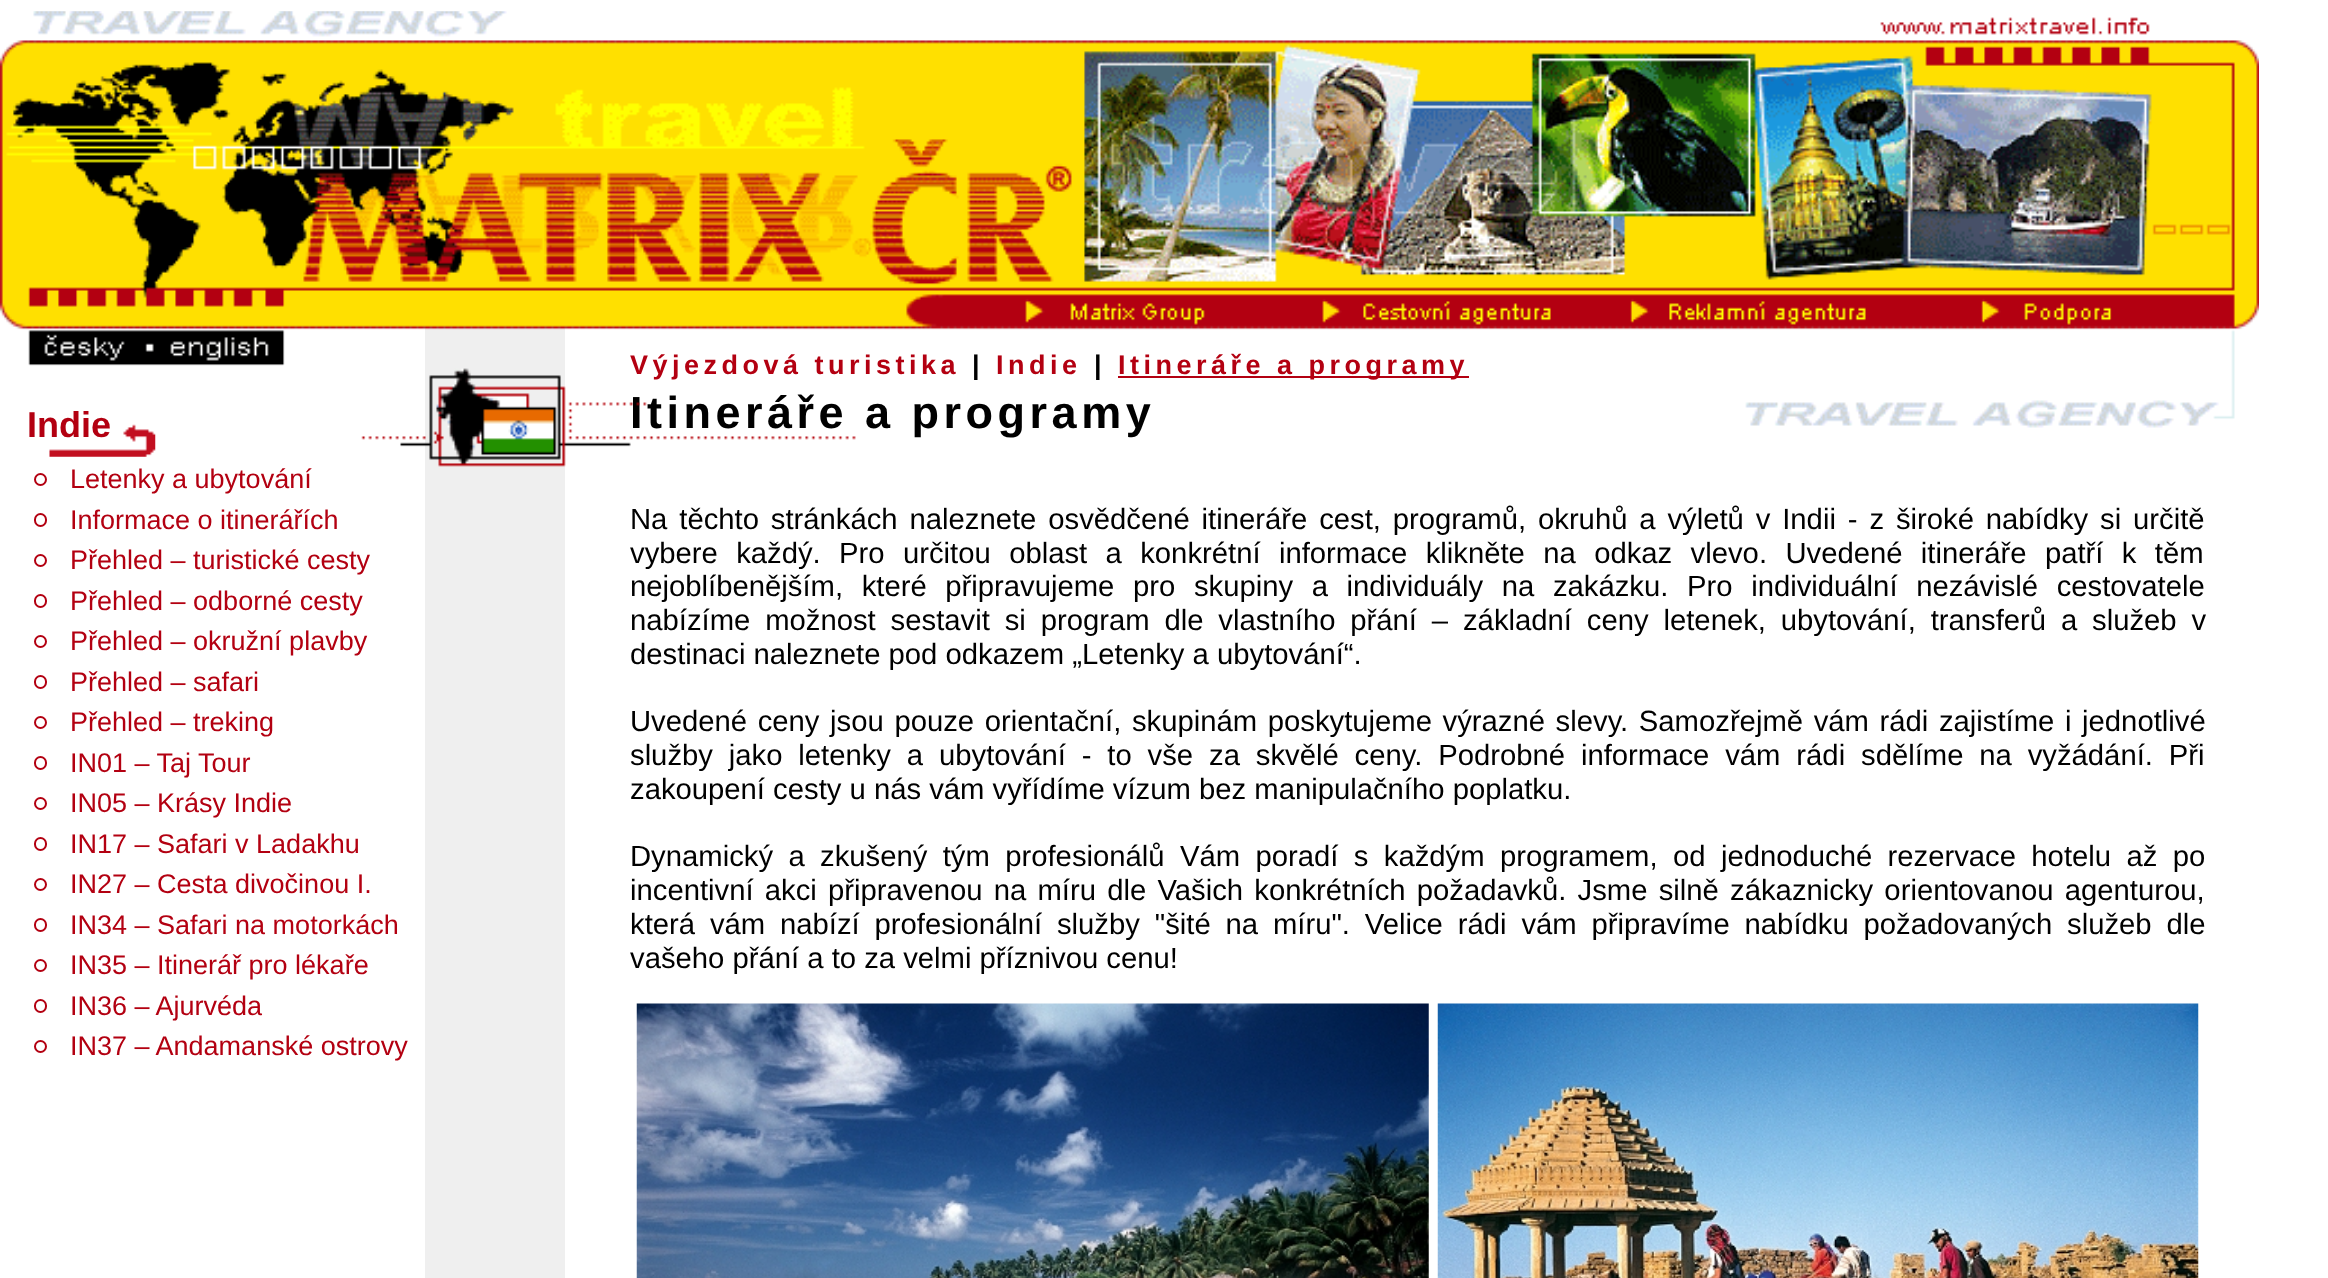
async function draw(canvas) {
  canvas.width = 2328
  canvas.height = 1278
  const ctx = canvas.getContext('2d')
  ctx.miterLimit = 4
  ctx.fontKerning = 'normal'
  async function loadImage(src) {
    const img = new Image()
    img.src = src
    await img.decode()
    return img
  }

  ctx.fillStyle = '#fff'
  ctx.fillRect(0, 0, 2328, 1278)
  ctx.fillStyle = '#efefef'
  ctx.fillRect(425, 328, 140, 950)
  ctx.drawImage(await loadImage('image0.png'), 0, 11, 2259, 417)
  ctx.drawImage(await loadImage('image1.png'), 49, 424, 107, 33)
  ctx.font = 'bold 36px Liberation Sans'
  ctx.fillStyle = '#b30011'
  ctx.fillText('Indie', 27, 437)
  ctx.beginPath()
  ctx.arc(40.5, 479.5, 5.5, 0, 2 * Math.PI)
  ctx.strokeStyle = '#b30011'
  ctx.lineWidth = 2
  ctx.stroke()
  ctx.font = '27px Liberation Sans'
  ctx.fillText('Letenky a ubytování', 70, 488)
  ctx.beginPath()
  ctx.roundRect(35, 514, 11, 12, 5.5)
  ctx.stroke()
  ctx.fillText('Informace o itinerářích', 70, 529)
  ctx.beginPath()
  ctx.arc(40.5, 560.5, 5.5, 0, 2 * Math.PI)
  ctx.stroke()
  ctx.fillText('Přehled – turistické cesty', 70, 569)
  ctx.beginPath()
  ctx.roundRect(35, 595, 11, 12, 5.5)
  ctx.stroke()
  ctx.fillText('Přehled – odborné cesty', 70, 610)
  ctx.beginPath()
  ctx.arc(40.5, 641.5, 5.5, 0, 2 * Math.PI)
  ctx.stroke()
  ctx.fillText('Přehled – okružní plavby', 70, 650)
  ctx.beginPath()
  ctx.roundRect(35, 676, 11, 12, 5.5)
  ctx.stroke()
  ctx.fillText('Přehled – safari', 70, 691)
  ctx.beginPath()
  ctx.arc(40.5, 722.5, 5.5, 0, 2 * Math.PI)
  ctx.stroke()
  ctx.fillText('Přehled – treking', 70, 731)
  ctx.beginPath()
  ctx.roundRect(35, 757, 11, 12, 5.5)
  ctx.stroke()
  ctx.fillText('IN01 – Taj Tour', 70, 772)
  ctx.beginPath()
  ctx.arc(40.5, 803.5, 5.5, 0, 2 * Math.PI)
  ctx.stroke()
  ctx.fillText('IN05 – Krásy Indie', 70, 812)
  ctx.beginPath()
  ctx.roundRect(35, 838, 11, 12, 5.5)
  ctx.stroke()
  ctx.fillText('IN17 – Safari v Ladakhu', 70, 853)
  ctx.beginPath()
  ctx.arc(40.5, 884.5, 5.5, 0, 2 * Math.PI)
  ctx.stroke()
  ctx.fillText('IN27 – Cesta divočinou I.', 70, 893)
  ctx.beginPath()
  ctx.roundRect(35, 919, 11, 12, 5.5)
  ctx.stroke()
  ctx.fillText('IN34 – Safari na motorkách', 70, 934)
  ctx.beginPath()
  ctx.arc(40.5, 965.5, 5.5, 0, 2 * Math.PI)
  ctx.stroke()
  ctx.fillText('IN35 – Itinerář pro lékaře', 70, 974)
  ctx.beginPath()
  ctx.roundRect(35, 1000, 11, 12, 5.5)
  ctx.stroke()
  ctx.fillText('IN36 – Ajurvéda', 70, 1015)
  ctx.beginPath()
  ctx.arc(40.5, 1046.5, 5.5, 0, 2 * Math.PI)
  ctx.stroke()
  ctx.fillText('IN37 – Andamanské ostrovy', 70, 1055)
  ctx.letterSpacing = '4.5px'
  ctx.font = 'bold 27px Liberation Sans'
  ctx.fillText('Výjezdová turistika', 630, 374)
  ctx.font = 'bold 45px Liberation Sans'
  ctx.fillStyle = '#000'
  ctx.fillText('Itineráře a programy', 630, 428)
  ctx.drawImage(await loadImage('image2.png'), 361, 368, 495, 99)
  ctx.font = 'bold 27px Liberation Sans'
  ctx.fillText('|', 972, 374)
  ctx.fillStyle = '#b30011'
  ctx.fillText('Indie', 996, 374)
  ctx.fillStyle = '#000'
  ctx.fillText('|', 1094, 374)
  ctx.fillStyle = '#b30011'
  ctx.fillRect(1118, 376, 351, 2)
  ctx.fillText('Itineráře a programy', 1118, 374)
  ctx.letterSpacing = '0px'
  ctx.wordSpacing = '3.75px'
  ctx.font = '29.25px Liberation Sans'
  ctx.fillStyle = '#000'
  ctx.fillText('Na těchto stránkách naleznete osvědčené itineráře cest, programů, okruhů a výletů v Indii - z široké nabídky si určitě', 630, 529)
  ctx.wordSpacing = '10.25px'
  ctx.fillText('vybere každý. Pro určitou oblast a konkrétní informace klikněte na odkaz vlevo. Uvedené itineráře patří k těm', 630, 563)
  ctx.wordSpacing = '10.5px'
  ctx.fillText('nejoblíbenějším, které připravujeme pro skupiny a individuály na zakázku. Pro individuální nezávislé cestovatele', 630, 596)
  ctx.wordSpacing = '6.75px'
  ctx.fillText('nabízíme možnost sestavit si program dle vlastního přání – základní ceny letenek, ubytování, transferů a služeb v', 630, 630)
  ctx.wordSpacing = '0px'
  ctx.fillText('destinaci naleznete pod odkazem „Letenky a ubytování“.', 630, 664)
  ctx.wordSpacing = '2.5px'
  ctx.fillText('Uvedené ceny jsou pouze orientační, skupinám poskytujeme výrazné slevy. Samozřejmě vám rádi zajistíme i jednotlivé', 630, 731)
  ctx.wordSpacing = '7.75px'
  ctx.fillText('služby jako letenky a ubytování - to vše za skvělé ceny. Podrobné informace vám rádi sdělíme na vyžádání. Při', 630, 765)
  ctx.wordSpacing = '0px'
  ctx.fillText('zakoupení cesty u nás vám vyřídíme vízum bez manipulačního poplatku.', 630, 799)
  ctx.wordSpacing = '7.25px'
  ctx.fillText('Dynamický a zkušený tým profesionálů Vám poradí s každým programem, od jednoduché rezervace hotelu až po', 630, 866)
  ctx.wordSpacing = '3.1px'
  ctx.fillText('incentivní akci připravenou na míru dle Vašich konkrétních požadavků. Jsme silně zákaznicky orientovanou agenturou,', 630, 900)
  ctx.wordSpacing = '6.75px'
  ctx.fillText('která vám nabízí profesionální služby "šité na míru". Velice rádi vám připravíme nabídku požadovaných služeb dle', 630, 934)
  ctx.wordSpacing = '0px'
  ctx.fillText('vašeho přání a to za velmi příznivou cenu!', 630, 968)
  ctx.drawImage(await loadImage('image3.png'), 636, 1003, 793, 275)
  ctx.drawImage(await loadImage('image4.png'), 1437, 1003, 762, 275)
}

draw(document.querySelector('canvas'))
